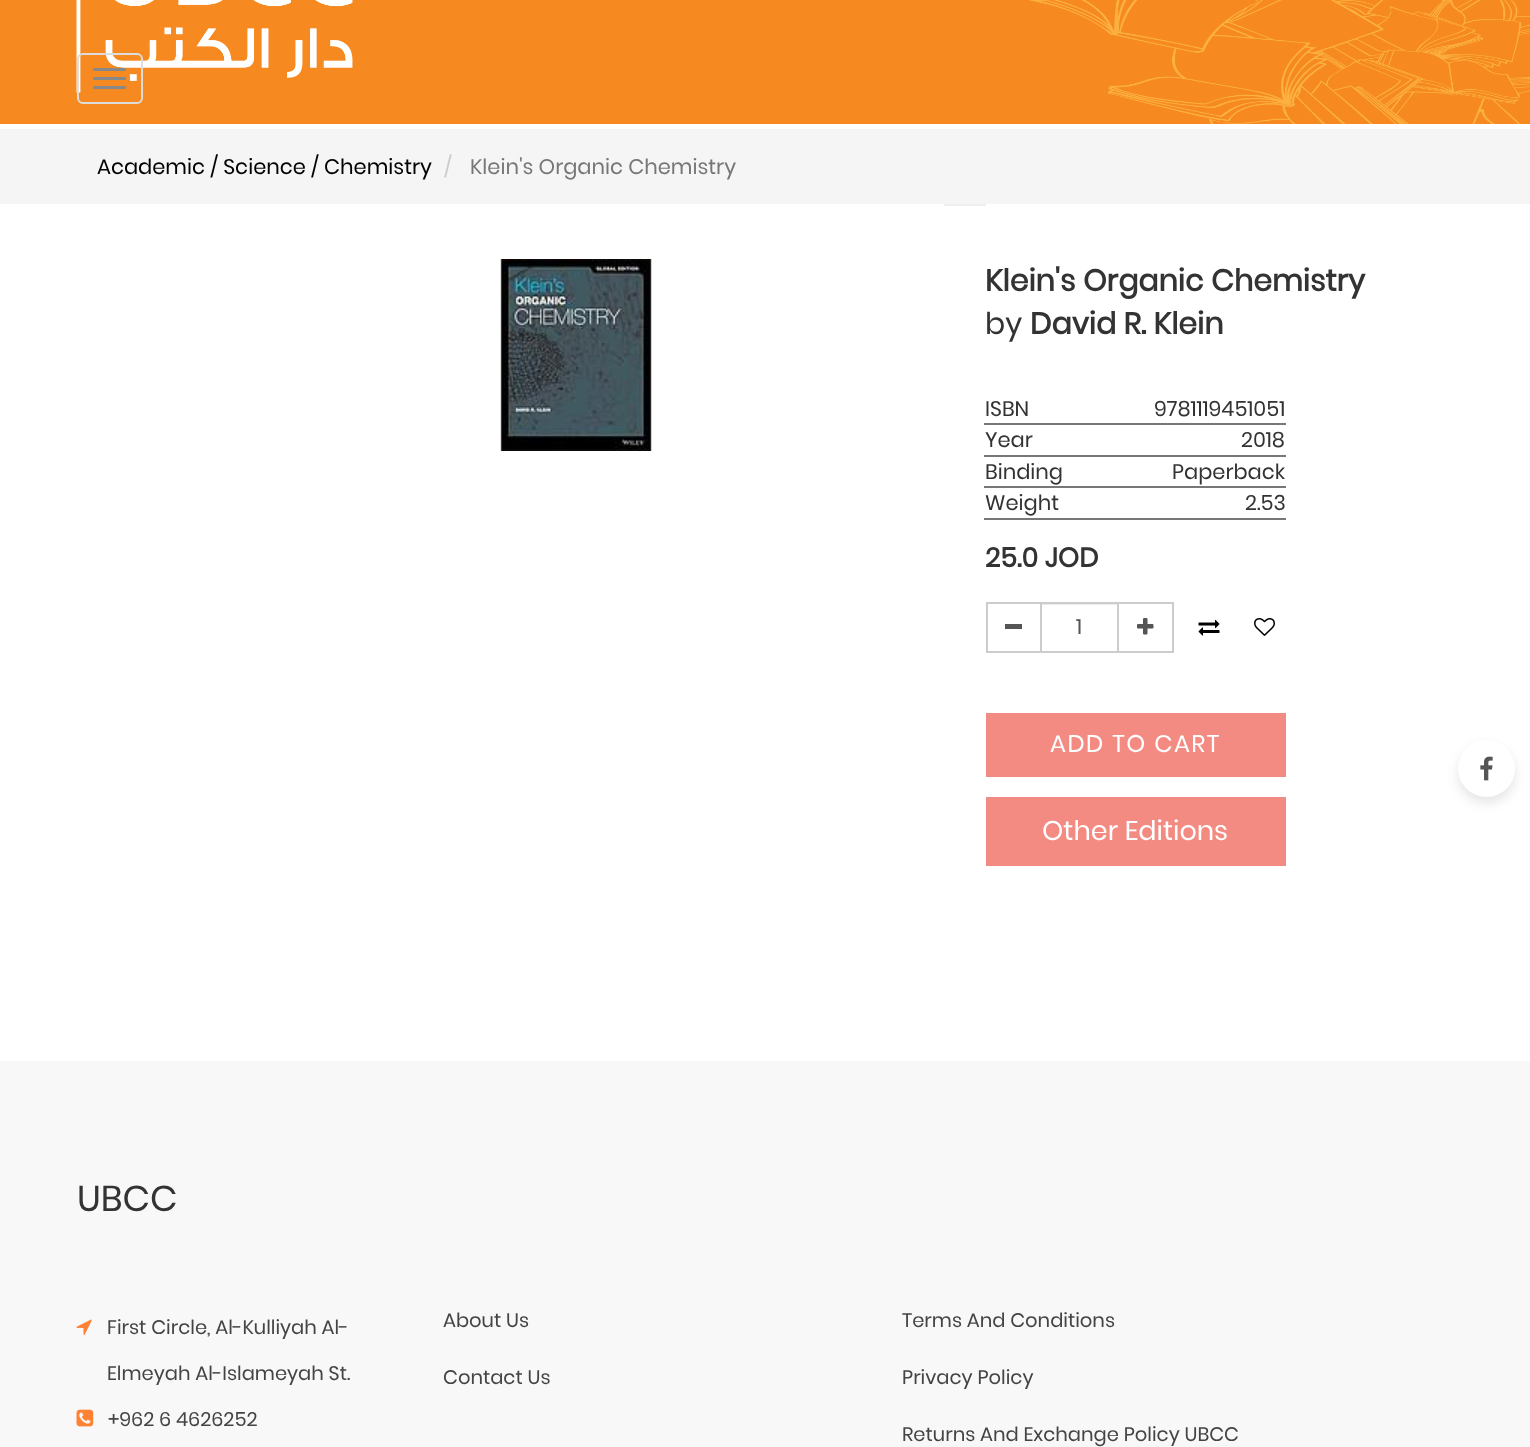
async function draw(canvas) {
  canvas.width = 1530
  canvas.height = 1447
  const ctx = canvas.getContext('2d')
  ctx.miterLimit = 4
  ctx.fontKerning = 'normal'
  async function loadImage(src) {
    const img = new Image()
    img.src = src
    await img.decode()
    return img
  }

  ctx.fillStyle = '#fff'
  ctx.fillRect(0, 0, 1530, 1447)
  ctx.drawImage(await loadImage('image0.png'), 0, 0, 1530, 124)
  ctx.drawImage(await loadImage('image1.png'), 76, 0, 277, 93)
  ctx.beginPath()
  ctx.roundRect(78, 54, 64, 49, 5)
  ctx.strokeStyle = '#ddd'
  ctx.lineWidth = 2
  ctx.stroke()
  ctx.fillStyle = '#888'
  ctx.beginPath()
  ctx.roundRect(93, 68, 33, 3, 1.5)
  ctx.fill()
  ctx.beginPath()
  ctx.roundRect(93, 77, 33, 3, 1.5)
  ctx.fill()
  ctx.beginPath()
  ctx.roundRect(93, 86, 33, 3, 1.5)
  ctx.fill()
  ctx.fillStyle = '#f5f5f5'
  ctx.fillRect(0, 129, 1530, 75)
  ctx.font = '21px Poppins'
  ctx.fillStyle = '#000'
  ctx.fillText('Academic / Science / Chemistry', 97, 174)
  ctx.fillStyle = '#ccc'
  ctx.fillText('/', 444, 174)
  ctx.fillStyle = '#777'
  ctx.fillText('Klein\'s Organic Chemistry', 470, 174)
  ctx.fillStyle = '#eee'
  ctx.fillRect(944, 204, 42, 2)
  ctx.drawImage(await loadImage('image2.png'), 500, 259, 152, 192)
  ctx.font = 'bold 30px Poppins'
  ctx.fillStyle = '#333'
  ctx.fillText('Klein\'s Organic Chemistry', 985, 291)
  ctx.font = '30px Poppins'
  ctx.fillText('by', 985, 334)
  ctx.font = 'bold 30px Poppins'
  ctx.fillText('David R. Klein', 1030, 334)
  ctx.fillStyle = '#777'
  ctx.fillRect(984, 423, 302, 2)
  ctx.font = '21px Poppins'
  ctx.fillStyle = '#333'
  ctx.fillText('ISBN', 985, 416)
  ctx.fillText('9781119451051', 1154, 416)
  ctx.fillStyle = '#777'
  ctx.fillRect(984, 455, 302, 2)
  ctx.fillStyle = '#333'
  ctx.fillText('Year', 985, 447)
  ctx.fillText('2018', 1241, 447)
  ctx.fillStyle = '#777'
  ctx.fillRect(984, 486, 302, 2)
  ctx.fillStyle = '#333'
  ctx.fillText('Binding', 985, 479)
  ctx.fillText('Paperback', 1172, 479)
  ctx.fillStyle = '#777'
  ctx.fillRect(984, 518, 302, 2)
  ctx.fillStyle = '#333'
  ctx.fillText('Weight', 985, 510)
  ctx.fillText('2.53', 1245, 510)
  ctx.font = 'bold 27px Poppins'
  ctx.fillText('25.0 JOD', 985, 567)
  ctx.fillStyle = '#ccc'
  ctx.fillRect(986, 602, 54, 2)
  ctx.fillRect(986, 651, 54, 2)
  ctx.fillRect(986, 602, 2, 51)
  ctx.fillStyle = '#555'
  ctx.fillRect(1005, 624, 17, 5)
  ctx.fillStyle = '#ececec'
  ctx.fillRect(1041, 604, 77, 1)
  ctx.strokeStyle = '#ccc'
  ctx.strokeRect(1041, 603, 77, 49)
  ctx.font = '21px Poppins'
  ctx.fillStyle = '#555'
  ctx.fillText('1', 1076, 634)
  ctx.fillStyle = '#ccc'
  ctx.fillRect(1119, 602, 54, 2)
  ctx.fillRect(1172, 602, 2, 51)
  ctx.fillRect(1119, 651, 54, 2)
  ctx.drawImage(await loadImage('image3.png'), 1137, 618, 17, 17)
  ctx.drawImage(await loadImage('image4.png'), 1198, 619, 22, 17)
  ctx.drawImage(await loadImage('image5.png'), 1254, 618, 21, 18)
  ctx.fillStyle = '#f48b82'
  ctx.fillRect(986, 713, 300, 64)
  ctx.letterSpacing = '1.5px'
  ctx.font = '24px Poppins'
  ctx.fillStyle = '#fff'
  ctx.fillText('ADD TO CART', 1050, 752)
  ctx.fillStyle = '#0000001a'
  ctx.filter = 'blur(6px)'
  ctx.beginPath()
  ctx.roundRect(1458, 746, 57, 57, 28.5)
  ctx.fill()
  ctx.filter = 'none'
  ctx.fillStyle = '#fff'
  ctx.beginPath()
  ctx.arc(1486.5, 768.5, 28.5, 0, 2 * Math.PI)
  ctx.fill()
  ctx.drawImage(await loadImage('image6.png'), 1480, 756, 13, 25)
  ctx.fillStyle = '#f48b82'
  ctx.fillRect(986, 797, 300, 69)
  ctx.letterSpacing = '0px'
  ctx.font = '27px Poppins'
  ctx.fillStyle = '#fff'
  ctx.fillText('Other Editions', 1042, 840)
  ctx.fillStyle = '#f8f8f8'
  ctx.fillRect(0, 1061, 1530, 386)
  ctx.font = '36px Poppins'
  ctx.fillStyle = '#333'
  ctx.fillText('UBCC', 77, 1211)
  ctx.drawImage(await loadImage('image7.png'), 76, 1319, 16, 16)
  ctx.font = '19.5px Poppins'
  ctx.fillStyle = '#444'
  ctx.fillText('First Circle, Al-Kulliyah Al-', 107, 1334)
  ctx.fillText('Elmeyah Al-Islameyah St.', 107, 1380)
  ctx.drawImage(await loadImage('image8.png'), 76, 1409, 18, 18)
  ctx.fillText('+962 6 4626252', 108, 1426)
  ctx.fillText('About Us', 443, 1327)
  ctx.fillText('Contact Us', 443, 1384)
  ctx.fillText('Terms And Conditions', 902, 1327)
  ctx.fillText('Privacy Policy', 902, 1384)
  ctx.fillText('Returns And Exchange Policy UBCC', 902, 1441)
}

draw(document.querySelector('canvas'))
